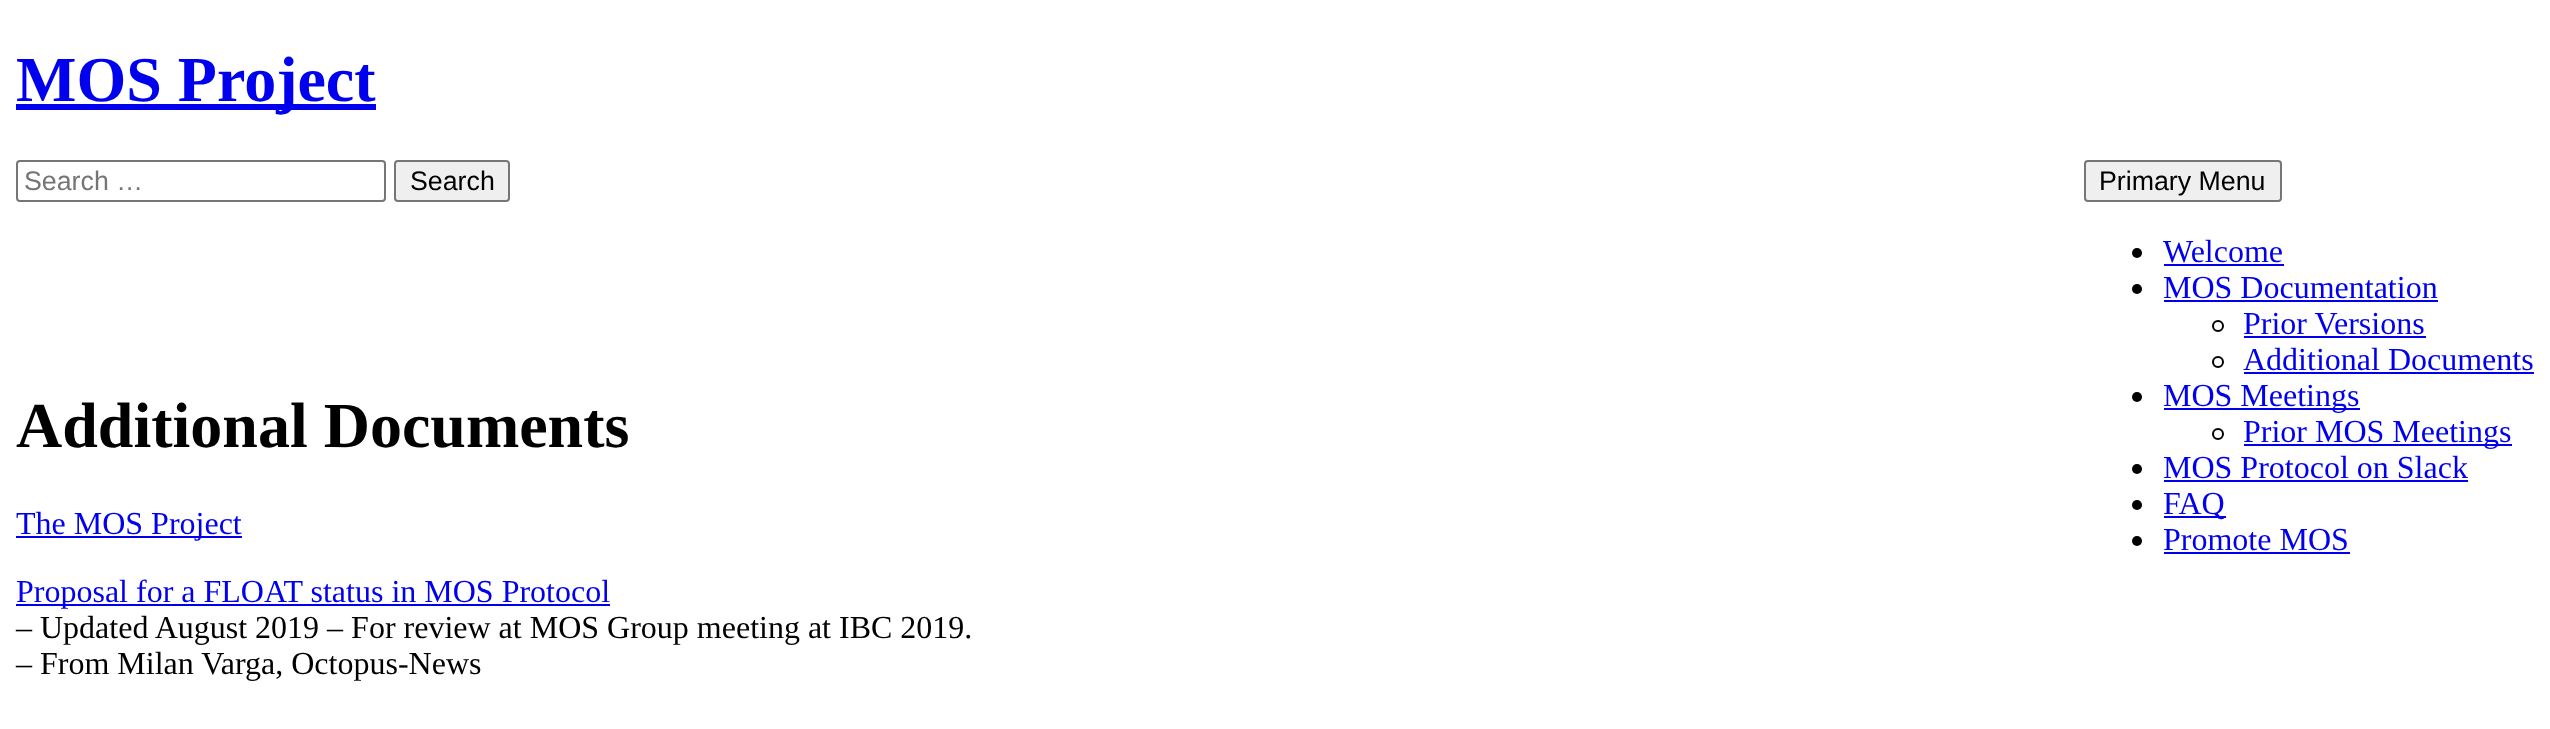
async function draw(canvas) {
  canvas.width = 2550
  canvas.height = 729
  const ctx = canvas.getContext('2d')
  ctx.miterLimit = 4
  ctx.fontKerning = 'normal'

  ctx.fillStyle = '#fff'
  ctx.fillRect(0, 0, 2550, 729)
  ctx.fillStyle = '#00e'
  ctx.fillRect(16, 104, 360, 6)
  ctx.font = 'bold 64px Liberation Serif'
  ctx.fillText('MOS Project', 16, 101)
  ctx.fillStyle = '#efefef'
  ctx.beginPath()
  ctx.roundRect(2085, 161, 196, 40, 3)
  ctx.fill()
  ctx.strokeStyle = '#767676'
  ctx.lineWidth = 2
  ctx.stroke()
  ctx.font = '26.75px Liberation Sans'
  ctx.fillStyle = '#000'
  ctx.fillText('Primary Menu', 2099, 190)
  ctx.beginPath()
  ctx.arc(2137, 253, 5, 0, 2 * Math.PI)
  ctx.fill()
  ctx.font = '32px Liberation Serif'
  ctx.fillStyle = '#00e'
  ctx.fillText('Welcome', 2163, 262)
  ctx.fillRect(2164, 264, 120, 2)
  ctx.fillStyle = '#000'
  ctx.beginPath()
  ctx.arc(2137, 289, 5, 0, 2 * Math.PI)
  ctx.fill()
  ctx.fillStyle = '#00e'
  ctx.fillText('MOS Documentation', 2163, 298)
  ctx.fillRect(2164, 300, 274, 2)
  ctx.beginPath()
  ctx.arc(2218, 326, 5, 0, 2 * Math.PI)
  ctx.strokeStyle = '#000'
  ctx.stroke()
  ctx.fillText('Prior Versions', 2243, 334)
  ctx.fillRect(2244, 336, 182, 2)
  ctx.beginPath()
  ctx.arc(2218, 362, 5, 0, 2 * Math.PI)
  ctx.stroke()
  ctx.fillText('Additional Documents', 2243, 370)
  ctx.fillRect(2244, 372, 290, 2)
  ctx.fillStyle = '#000'
  ctx.beginPath()
  ctx.arc(2137, 397, 5, 0, 2 * Math.PI)
  ctx.fill()
  ctx.fillStyle = '#00e'
  ctx.fillRect(2164, 408, 196, 2)
  ctx.fillText('MOS Meetings', 2163, 406)
  ctx.beginPath()
  ctx.arc(2218, 434, 5, 0, 2 * Math.PI)
  ctx.stroke()
  ctx.fillRect(2244, 444, 268, 2)
  ctx.fillText('Prior MOS Meetings', 2243, 442)
  ctx.fillStyle = '#000'
  ctx.beginPath()
  ctx.arc(2137, 469, 5, 0, 2 * Math.PI)
  ctx.fill()
  ctx.fillStyle = '#00e'
  ctx.fillText('MOS Protocol on Slack', 2163, 478)
  ctx.fillRect(2164, 480, 304, 2)
  ctx.fillStyle = '#000'
  ctx.beginPath()
  ctx.arc(2137, 505, 5, 0, 2 * Math.PI)
  ctx.fill()
  ctx.fillStyle = '#00e'
  ctx.fillRect(2164, 516, 62, 2)
  ctx.fillText('FAQ', 2163, 514)
  ctx.fillStyle = '#000'
  ctx.beginPath()
  ctx.arc(2137, 541, 5, 0, 2 * Math.PI)
  ctx.fill()
  ctx.fillStyle = '#00e'
  ctx.fillText('Promote MOS', 2163, 550)
  ctx.fillRect(2164, 552, 186, 2)
  ctx.beginPath()
  ctx.roundRect(17, 161, 368, 40, 3)
  ctx.strokeStyle = '#767676'
  ctx.stroke()
  ctx.font = '26.75px Liberation Sans'
  ctx.fillStyle = '#757575'
  ctx.fillText('Search …', 24, 190)
  ctx.fillStyle = '#efefef'
  ctx.beginPath()
  ctx.roundRect(395, 161, 114, 40, 3)
  ctx.fill()
  ctx.stroke()
  ctx.fillStyle = '#000'
  ctx.fillText('Search', 410, 190)
  ctx.font = 'bold 64px Liberation Serif'
  ctx.fillText('Additional Documents', 16, 447)
  ctx.fillStyle = '#00e'
  ctx.fillRect(16, 536, 226, 2)
  ctx.font = '32px Liberation Serif'
  ctx.fillText('The MOS Project', 16, 534)
  ctx.fillRect(16, 604, 594, 2)
  ctx.fillText('Proposal for a FLOAT status in MOS Protocol', 16, 602)
  ctx.fillStyle = '#000'
  ctx.fillText('– Updated August 2019 – For review at MOS Group meeting at IBC 2019.', 16, 638)
  ctx.fillText('– From Milan Varga, Octopus-News', 16, 674)
}

draw(document.querySelector('canvas'))
